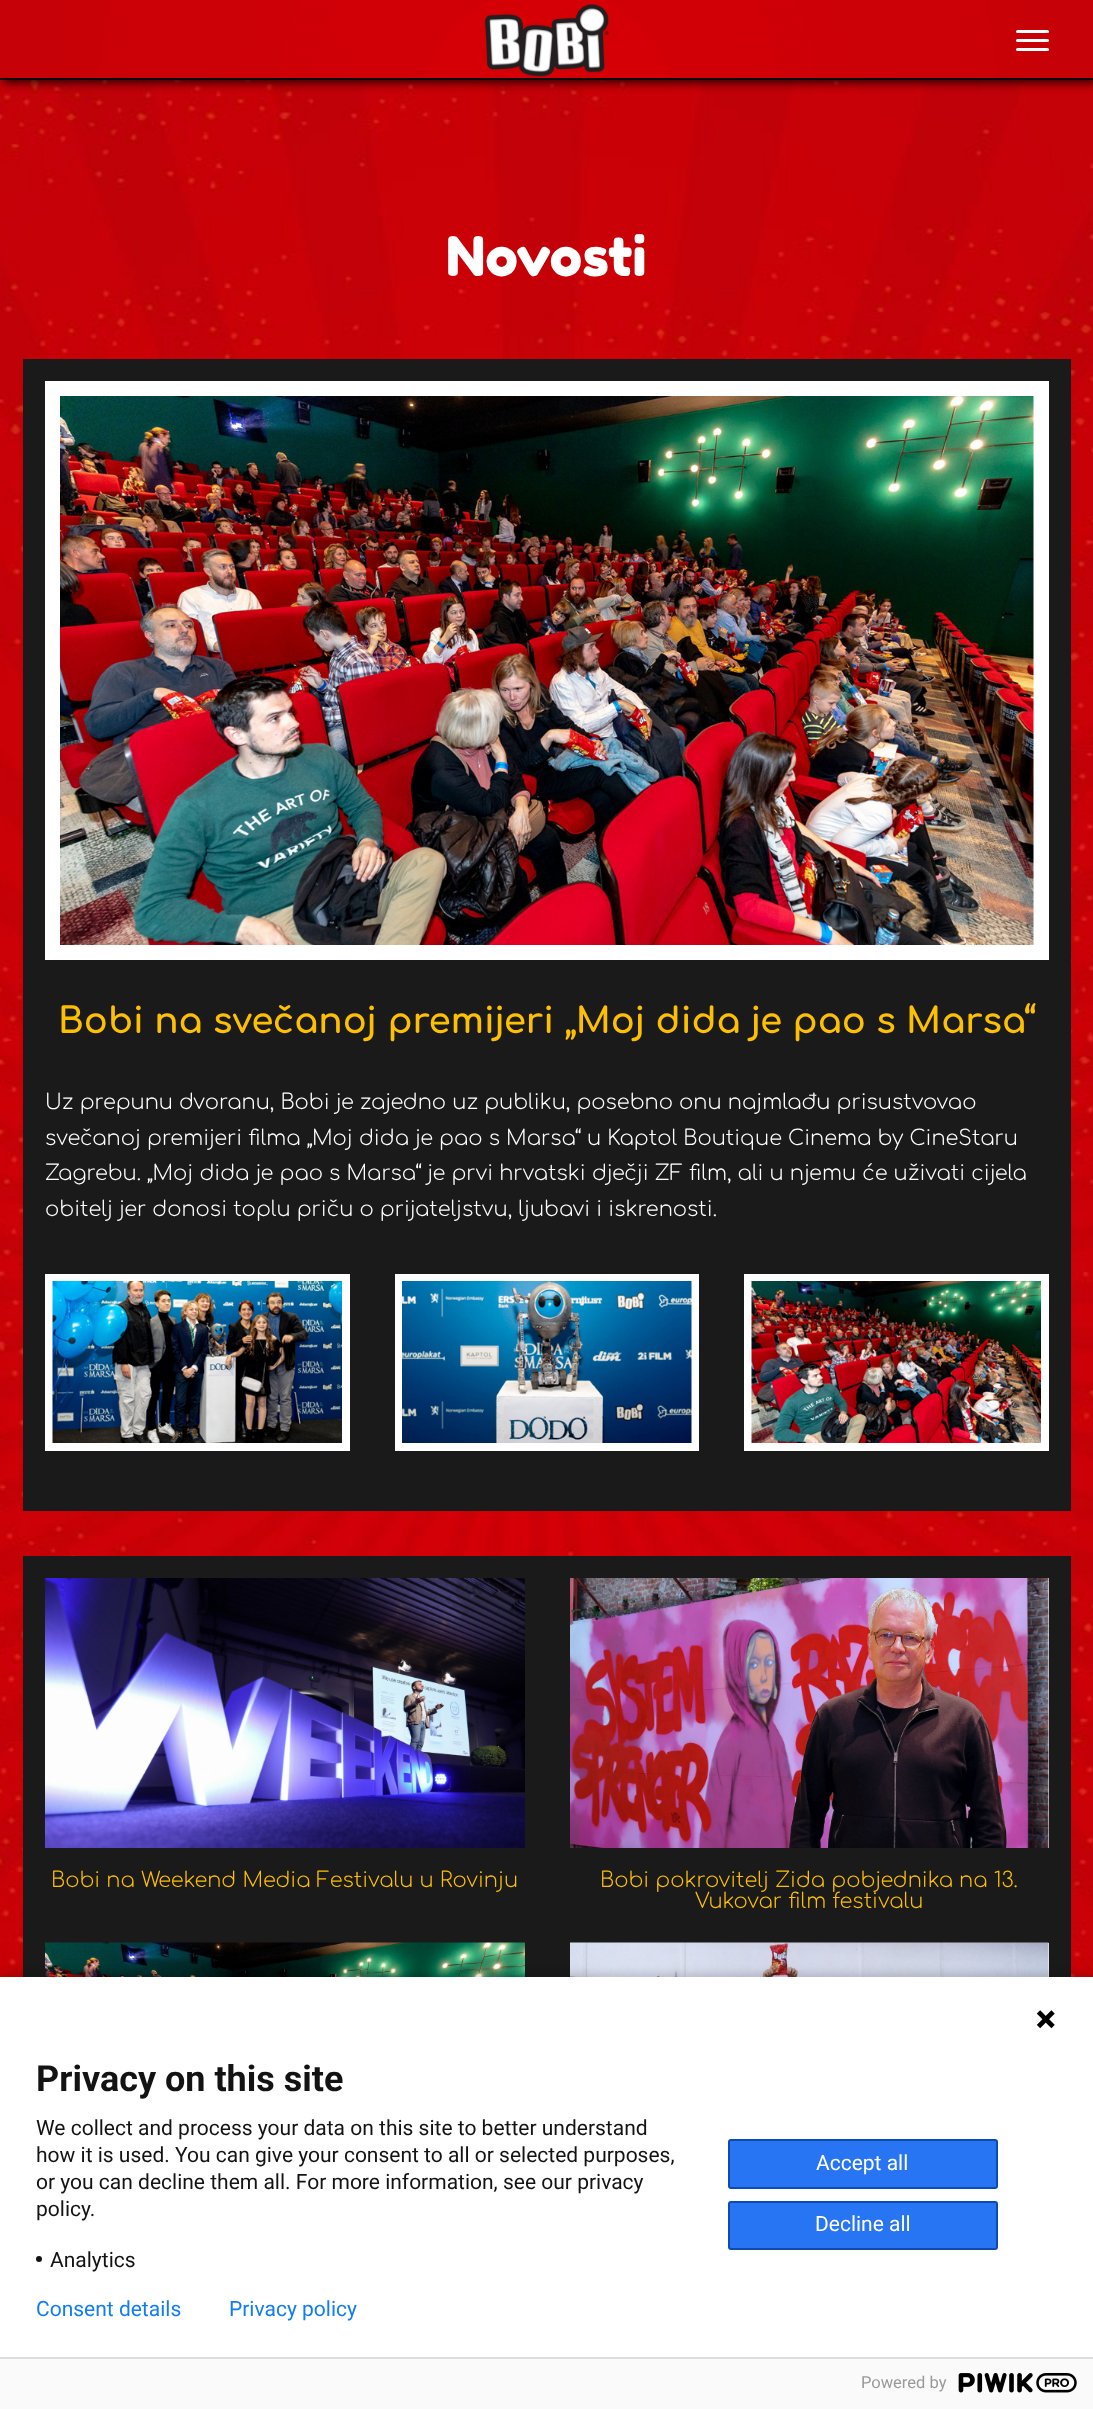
async function draw(canvas) {
  canvas.width = 1093
  canvas.height = 2409
  const ctx = canvas.getContext('2d')
  ctx.miterLimit = 4
  ctx.fontKerning = 'normal'
  async function loadImage(src) {
    const img = new Image()
    img.src = src
    await img.decode()
    return img
  }

  ctx.fillStyle = '#fff'
  ctx.fillRect(0, 0, 1093, 2409)
  ctx.fillStyle = '#1a1a1a'
  ctx.fillRect(0, 78, 1093, 2)
  ctx.drawImage(await loadImage('image2.png'), 0, 80, 1093, 1897)
  ctx.fillStyle = '#000000bf'
  ctx.filter = 'blur(5px)'
  ctx.beginPath()
  ctx.rect(3, 5, 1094, 78)
  ctx.fill()
  ctx.filter = 'none'
  ctx.drawImage(await loadImage('image0.png'), 0, 0, 1093, 78)
  ctx.drawImage(await loadImage('image1.png'), 484, 4, 125, 73)
  ctx.fillStyle = '#fff'
  ctx.beginPath()
  ctx.roundRect(1016, 30, 33, 3, 1.5)
  ctx.fill()
  ctx.beginPath()
  ctx.roundRect(1016, 39, 33, 3, 1.5)
  ctx.fill()
  ctx.beginPath()
  ctx.roundRect(1016, 48, 33, 3, 1.5)
  ctx.fill()
  ctx.font = '54.5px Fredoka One'
  ctx.fillText('Novosti', 446, 276)
  ctx.fillStyle = '#1a1a1a'
  ctx.fillRect(23, 359, 1048, 1152)
  ctx.fillStyle = '#fff'
  ctx.fillRect(45, 381, 1004, 579)
  ctx.drawImage(await loadImage('image3.png'), 60, 396, 974, 549)
  ctx.font = 'bold 35.7px Comfortaa'
  ctx.fillStyle = '#fdbf01'
  ctx.fillText('Bobi na svečanoj premijeri „Moj dida je pao s Marsa“', 58, 1033)
  ctx.font = '300 21px Comfortaa'
  ctx.fillStyle = '#fff'
  ctx.fillText('Uz prepunu dvoranu, Bobi je zajedno uz publiku, posebno onu najmlađu prisustvovao', 45, 1109)
  ctx.fillText('svečanoj premijeri filma „Moj dida je pao s Marsa“ u Kaptol Boutique Cinema by CineStaru', 45, 1145)
  ctx.fillText('Zagrebu. „Moj dida je pao s Marsa“ je prvi hrvatski dječji ZF film, ali u njemu će uživati cijela', 45, 1180)
  ctx.fillText('obitelj jer donosi toplu priču o prijateljstvu, ljubavi i iskrenosti.', 45, 1216)
  ctx.fillRect(45, 1274, 305, 177)
  ctx.drawImage(await loadImage('image4.png'), 52, 1281, 290, 162)
  ctx.fillRect(395, 1274, 304, 177)
  ctx.drawImage(await loadImage('image5.png'), 402, 1281, 290, 162)
  ctx.fillRect(744, 1274, 305, 177)
  ctx.drawImage(await loadImage('image6.png'), 751, 1281, 290, 162)
  ctx.fillStyle = '#1a1a1a'
  ctx.fillRect(23, 1556, 1048, 421)
  ctx.drawImage(await loadImage('image7.png'), 45, 1578, 480, 270)
  ctx.fillStyle = '#fdbf01'
  ctx.fillText('Bobi na Weekend Media Festivalu u Rovinju', 51, 1887)
  ctx.fillStyle = '#fff'
  ctx.fillRect(1048, 1578, 1, 270)
  ctx.drawImage(await loadImage('image8.png'), 570, 1578, 479, 270)
  ctx.fillStyle = '#fdbf01'
  ctx.fillText('Bobi pokrovitelj Zida pobjednika na 13.', 600, 1887)
  ctx.fillText('Vukovar film festivalu', 695, 1908)
  ctx.drawImage(await loadImage('image9.png'), 45, 1942, 480, 35)
  ctx.fillStyle = '#fff'
  ctx.fillRect(1048, 1943, 1, 34)
  ctx.drawImage(await loadImage('image10.png'), 570, 1942, 479, 35)
  ctx.fillStyle = '#00000024'
  ctx.filter = 'blur(4px)'
  ctx.beginPath()
  ctx.rect(-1, 1973, 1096, 435)
  ctx.fill()
  ctx.filter = 'none'
  ctx.fillStyle = '#fff'
  ctx.fillRect(0, 1977, 1093, 380)
  ctx.drawImage(await loadImage('image11.png'), 1036, 2010, 19, 19)
  ctx.font = 'bold 36px Roboto'
  ctx.fillStyle = '#131313'
  ctx.fillText('Privacy on this site', 36, 2091)
  ctx.font = '21px Roboto'
  ctx.fillText('We collect and process your data on this site to better understand', 36, 2135)
  ctx.fillText('how it is used. You can give your consent to all or selected purposes,', 36, 2162)
  ctx.fillText('or you can decline them all. For more information, see our privacy', 36, 2189)
  ctx.fillText('policy.', 36, 2216)
  ctx.beginPath()
  ctx.arc(39, 2259, 3, 0, 2 * Math.PI)
  ctx.fill()
  ctx.fillText('Analytics', 50, 2267)
  ctx.fillStyle = '#2775f2'
  ctx.beginPath()
  ctx.roundRect(729, 2140, 268, 48, 2)
  ctx.fill()
  ctx.strokeStyle = '#0b4bb3'
  ctx.lineWidth = 2
  ctx.stroke()
  ctx.fillStyle = '#fff'
  ctx.fillText('Accept all', 816, 2170)
  ctx.fillStyle = '#2775f2'
  ctx.beginPath()
  ctx.roundRect(729, 2202, 268, 47, 2)
  ctx.fill()
  ctx.stroke()
  ctx.fillStyle = '#fff'
  ctx.fillText('Decline all', 815, 2231)
  ctx.fillStyle = '#107ef1'
  ctx.fillText('Consent details', 36, 2316)
  ctx.fillText('Privacy policy', 229, 2316)
  ctx.fillStyle = '#fafafa'
  ctx.fillRect(0, 2359, 1093, 50)
  ctx.fillStyle = '#ddd'
  ctx.fillRect(0, 2357, 1093, 2)
  ctx.font = '16.5px Roboto'
  ctx.fillStyle = '#999'
  ctx.fillText('Powered by', 861, 2388)
  ctx.drawImage(await loadImage('image12.png'), 958, 2373, 119, 20)
}

draw(document.querySelector('canvas'))
